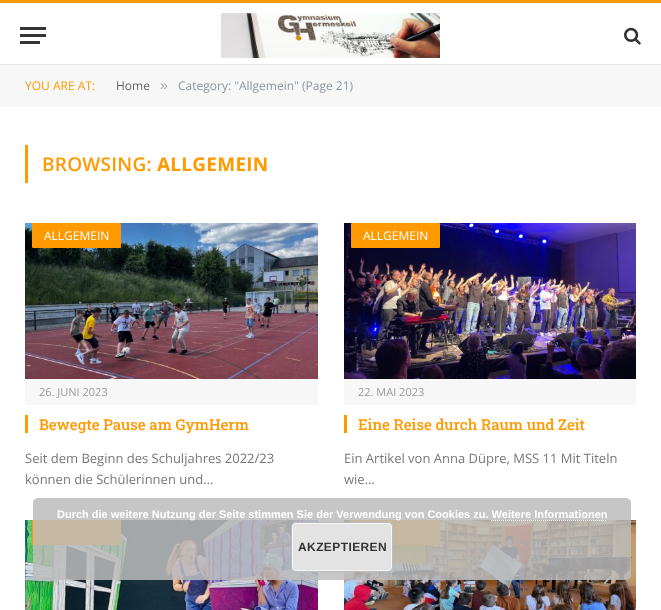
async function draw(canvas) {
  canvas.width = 661
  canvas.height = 610
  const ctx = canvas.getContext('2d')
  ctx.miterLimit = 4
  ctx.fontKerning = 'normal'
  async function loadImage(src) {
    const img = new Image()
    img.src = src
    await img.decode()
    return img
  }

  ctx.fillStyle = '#fff'
  ctx.fillRect(0, 0, 661, 610)
  ctx.fillStyle = '#f90'
  ctx.fillRect(0, 0, 661, 3)
  ctx.fillStyle = '#e8e8e8'
  ctx.fillRect(0, 64, 661, 1)
  ctx.fillStyle = '#333'
  ctx.fillRect(20, 41, 20, 3)
  ctx.fillRect(20, 27, 26, 3)
  ctx.fillRect(20, 34, 26, 3)
  ctx.drawImage(await loadImage('image0.png'), 221, 13, 219, 45)
  ctx.drawImage(await loadImage('image1.png'), 624, 27, 17, 18)
  ctx.fillStyle = '#f7f7f7'
  ctx.fillRect(0, 65, 661, 42)
  ctx.font = '12px Open Sans'
  ctx.fillStyle = '#f90'
  ctx.fillText('YOU ARE AT:', 25, 90)
  ctx.fillStyle = '#666'
  ctx.fillText('Home', 116, 90)
  ctx.font = '14px Liberation Sans'
  ctx.fillStyle = '#a2aab2'
  ctx.fillText('»', 160, 90)
  ctx.font = '12px Open Sans'
  ctx.fillStyle = '#8d97a1'
  ctx.fillText('Category: "Allgemein" (Page 21)', 178, 90)
  ctx.fillStyle = '#f90'
  ctx.fillRect(25, 145, 3, 38)
  ctx.letterSpacing = '0.25px'
  ctx.font = '600 19px Open Sans'
  ctx.fillText('BROWSING:', 42, 171)
  ctx.font = 'bold 19px Open Sans'
  ctx.fillText('ALLGEMEIN', 157, 171)
  ctx.drawImage(await loadImage('image2.png'), 25, 223, 293, 156)
  ctx.beginPath()
  ctx.roundRect(32, 223, 89, 25, 1)
  ctx.fill()
  ctx.letterSpacing = '0px'
  ctx.font = '12px Open Sans'
  ctx.fillStyle = '#fff'
  ctx.fillText('ALLGEMEIN', 44, 240)
  ctx.fillStyle = '#f7f7f7'
  ctx.fillRect(25, 379, 293, 26)
  ctx.font = '11px Open Sans'
  ctx.fillStyle = '#999'
  ctx.fillText('26. JUNI 2023', 39, 396)
  ctx.fillStyle = '#f90'
  ctx.fillRect(25, 415, 3, 18)
  ctx.font = '500 15px Roboto Slab'
  ctx.fillText('Bewegte Pause am GymHerm', 39, 430)
  ctx.font = '13px Open Sans'
  ctx.fillStyle = '#777'
  ctx.fillText('Seit dem Beginn des Schuljahres 2022/23', 25, 463)
  ctx.fillText('können die Schülerinnen und…', 25, 484)
  ctx.drawImage(await loadImage('image3.png'), 344, 223, 292, 156)
  ctx.fillStyle = '#f90'
  ctx.beginPath()
  ctx.roundRect(351, 223, 89, 25, 1)
  ctx.fill()
  ctx.font = '12px Open Sans'
  ctx.fillStyle = '#fff'
  ctx.fillText('ALLGEMEIN', 363, 240)
  ctx.fillStyle = '#f7f7f7'
  ctx.fillRect(344, 379, 292, 26)
  ctx.font = '11px Open Sans'
  ctx.fillStyle = '#999'
  ctx.fillText('22. MAI 2023', 358, 396)
  ctx.fillStyle = '#f90'
  ctx.fillRect(344, 415, 3, 18)
  ctx.font = '500 15px Roboto Slab'
  ctx.fillText('Eine Reise durch Raum und Zeit', 358, 430)
  ctx.font = '13px Open Sans'
  ctx.fillStyle = '#777'
  ctx.fillText('Ein Artikel von Anna Düpre, MSS 11 Mit Titeln', 344, 463)
  ctx.fillText('wie…', 344, 484)
  ctx.drawImage(await loadImage('image4.png'), 25, 520, 293, 90)
  ctx.fillStyle = '#f90'
  ctx.beginPath()
  ctx.roundRect(32, 520, 89, 25, 1)
  ctx.fill()
  ctx.drawImage(await loadImage('image5.png'), 344, 520, 292, 90)
  ctx.beginPath()
  ctx.roundRect(351, 520, 89, 25, 1)
  ctx.fill()
  ctx.fillStyle = '#bcbcbcd9'
  ctx.beginPath()
  ctx.roundRect(33, 498, 598, 82, 5)
  ctx.fill()
  ctx.font = 'bold 11px Liberation Sans'
  ctx.fillStyle = '#fff'
  ctx.fillText('Durch die weitere Nutzung der Seite stimmen Sie der Verwendung von Cookies zu. Weitere Informationen', 57, 518)
  ctx.beginPath()
  ctx.moveTo(491, 520.5)
  ctx.lineTo(607, 520.5)
  ctx.strokeStyle = '#fff'
  ctx.setLineDash([1, 1])
  ctx.stroke()
  ctx.fillStyle = '#e3e3e3'
  ctx.beginPath()
  ctx.roundRect(291, 522, 102, 50, 5)
  ctx.fill()
  ctx.beginPath()
  ctx.roundRect(292.5, 523.5, 99, 47, 3.5)
  ctx.strokeStyle = '#f6f6f6'
  ctx.setLineDash([])
  ctx.stroke()
  ctx.beginPath()
  ctx.roundRect(291.5, 522.5, 101, 49, 4.5)
  ctx.strokeStyle = '#bbb'
  ctx.stroke()
  ctx.letterSpacing = '0.4px'
  ctx.font = 'bold 12px Liberation Sans'
  ctx.fillStyle = '#333'
  ctx.fillText('AKZEPTIEREN', 298, 551)
}

draw(document.querySelector('canvas'))
